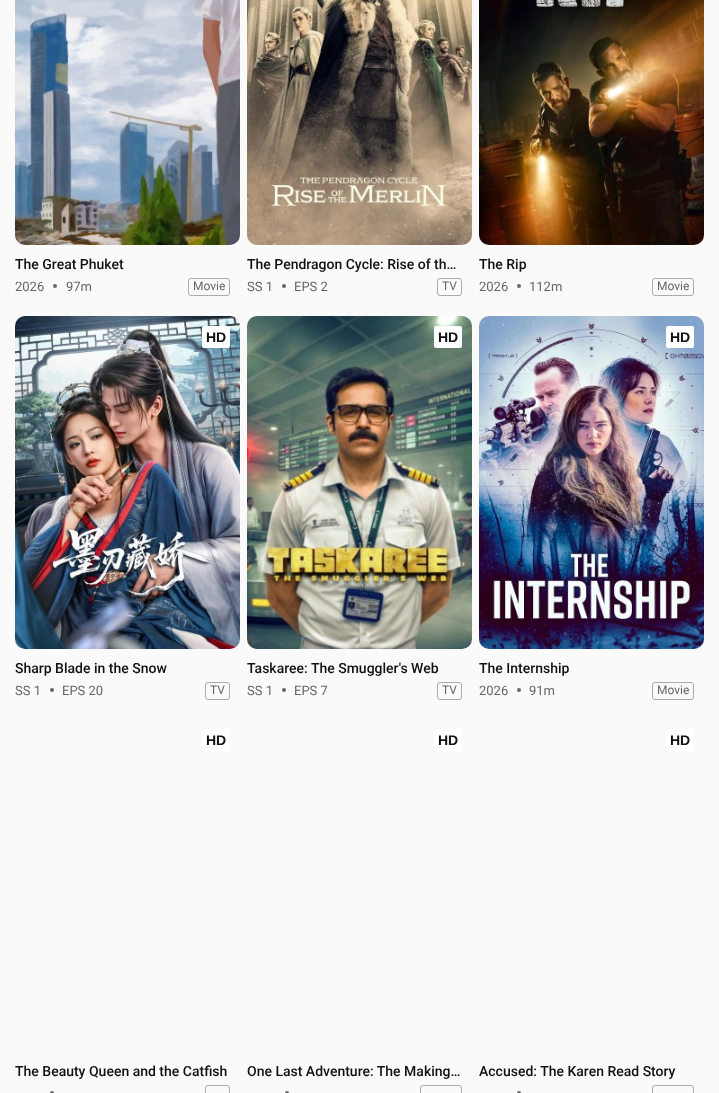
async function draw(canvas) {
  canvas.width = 719
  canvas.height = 1093
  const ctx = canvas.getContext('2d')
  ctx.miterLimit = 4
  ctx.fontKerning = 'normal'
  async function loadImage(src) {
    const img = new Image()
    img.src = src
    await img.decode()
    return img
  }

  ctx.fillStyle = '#fafafa'
  ctx.fillRect(0, 0, 719, 1093)
  ctx.drawImage(await loadImage('image0.png'), 15, 0, 225, 245)
  ctx.font = '500 14px Roboto'
  ctx.fillStyle = '#111'
  ctx.fillText('The Great Phuket', 15, 269)
  ctx.font = '13px Roboto'
  ctx.fillStyle = '#666'
  ctx.fillText('2026', 15, 291)
  ctx.beginPath()
  ctx.arc(55, 286, 2, 0, 2 * Math.PI)
  ctx.fill()
  ctx.fillText('97m', 66, 291)
  ctx.beginPath()
  ctx.roundRect(188.5, 278.5, 41, 17, 2.5)
  ctx.strokeStyle = '#aaa'
  ctx.stroke()
  ctx.font = '12px Roboto'
  ctx.fillText('Movie', 193, 290)
  ctx.drawImage(await loadImage('image1.png'), 247, 0, 225, 245)
  ctx.font = '500 14px Roboto'
  ctx.fillStyle = '#111'
  ctx.fillText('The Pendragon Cycle: Rise of th…', 247, 269)
  ctx.font = '13px Roboto'
  ctx.fillStyle = '#666'
  ctx.fillText('SS 1', 247, 291)
  ctx.beginPath()
  ctx.arc(284, 286, 2, 0, 2 * Math.PI)
  ctx.fill()
  ctx.fillText('EPS 2', 294, 291)
  ctx.beginPath()
  ctx.roundRect(437.5, 278.5, 24, 17, 2.5)
  ctx.stroke()
  ctx.font = '12px Roboto'
  ctx.fillText('TV', 442, 290)
  ctx.drawImage(await loadImage('image2.png'), 479, 0, 225, 245)
  ctx.font = '500 14px Roboto'
  ctx.fillStyle = '#111'
  ctx.fillText('The Rip', 479, 269)
  ctx.font = '13px Roboto'
  ctx.fillStyle = '#666'
  ctx.fillText('2026', 479, 291)
  ctx.beginPath()
  ctx.arc(519, 286, 2, 0, 2 * Math.PI)
  ctx.fill()
  ctx.fillText('112m', 529, 291)
  ctx.beginPath()
  ctx.roundRect(652.5, 278.5, 41, 17, 2.5)
  ctx.stroke()
  ctx.font = '12px Roboto'
  ctx.fillText('Movie', 657, 290)
  ctx.drawImage(await loadImage('image3.png'), 15, 316, 225, 333)
  ctx.fillStyle = '#fff'
  ctx.beginPath()
  ctx.roundRect(202, 326, 28, 22, 2)
  ctx.fill()
  ctx.font = 'bold 14px Liberation Sans'
  ctx.fillStyle = '#111'
  ctx.fillText('HD', 206, 342)
  ctx.font = '500 14px Roboto'
  ctx.fillText('Sharp Blade in the Snow', 15, 673)
  ctx.font = '13px Roboto'
  ctx.fillStyle = '#666'
  ctx.fillText('SS 1', 15, 695)
  ctx.beginPath()
  ctx.arc(52, 690, 2, 0, 2 * Math.PI)
  ctx.fill()
  ctx.fillText('EPS 20', 62, 695)
  ctx.beginPath()
  ctx.roundRect(205.5, 682.5, 24, 17, 2.5)
  ctx.stroke()
  ctx.font = '12px Roboto'
  ctx.fillText('TV', 210, 694)
  ctx.drawImage(await loadImage('image4.png'), 247, 316, 225, 333)
  ctx.fillStyle = '#fff'
  ctx.beginPath()
  ctx.roundRect(434, 326, 28, 22, 2)
  ctx.fill()
  ctx.font = 'bold 14px Liberation Sans'
  ctx.fillStyle = '#111'
  ctx.fillText('HD', 438, 342)
  ctx.font = '500 14px Roboto'
  ctx.fillText('Taskaree: The Smuggler\'s Web', 247, 673)
  ctx.font = '13px Roboto'
  ctx.fillStyle = '#666'
  ctx.fillText('SS 1', 247, 695)
  ctx.beginPath()
  ctx.arc(284, 690, 2, 0, 2 * Math.PI)
  ctx.fill()
  ctx.fillText('EPS 7', 294, 695)
  ctx.beginPath()
  ctx.roundRect(437.5, 682.5, 24, 17, 2.5)
  ctx.stroke()
  ctx.font = '12px Roboto'
  ctx.fillText('TV', 442, 694)
  ctx.drawImage(await loadImage('image5.png'), 479, 316, 225, 333)
  ctx.fillStyle = '#fff'
  ctx.beginPath()
  ctx.roundRect(666, 326, 28, 22, 2)
  ctx.fill()
  ctx.font = 'bold 14px Liberation Sans'
  ctx.fillStyle = '#111'
  ctx.fillText('HD', 670, 342)
  ctx.font = '500 14px Roboto'
  ctx.fillText('The Internship', 479, 673)
  ctx.font = '13px Roboto'
  ctx.fillStyle = '#666'
  ctx.fillText('2026', 479, 695)
  ctx.beginPath()
  ctx.arc(519, 690, 2, 0, 2 * Math.PI)
  ctx.fill()
  ctx.fillText('91m', 529, 695)
  ctx.beginPath()
  ctx.roundRect(652.5, 682.5, 41, 17, 2.5)
  ctx.stroke()
  ctx.font = '12px Roboto'
  ctx.fillText('Movie', 657, 694)
  ctx.fillStyle = '#fff'
  ctx.beginPath()
  ctx.roundRect(202, 729, 28, 23, 2)
  ctx.fill()
  ctx.font = 'bold 14px Liberation Sans'
  ctx.fillStyle = '#111'
  ctx.fillText('HD', 206, 745)
  ctx.font = '500 14px Roboto'
  ctx.fillText('The Beauty Queen and the Catfish', 15, 1076)
  ctx.fillStyle = '#666'
  ctx.beginPath()
  ctx.arc(52, 1093, 2, 0, 2 * Math.PI)
  ctx.fill()
  ctx.beginPath()
  ctx.roundRect(205.5, 1085.5, 24, 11, 2.5)
  ctx.stroke()
  ctx.fillStyle = '#fff'
  ctx.beginPath()
  ctx.roundRect(434, 729, 28, 23, 2)
  ctx.fill()
  ctx.font = 'bold 14px Liberation Sans'
  ctx.fillStyle = '#111'
  ctx.fillText('HD', 438, 745)
  ctx.font = '500 14px Roboto'
  ctx.fillText('One Last Adventure: The Making…', 247, 1076)
  ctx.fillStyle = '#666'
  ctx.beginPath()
  ctx.arc(287, 1093, 2, 0, 2 * Math.PI)
  ctx.fill()
  ctx.beginPath()
  ctx.roundRect(420.5, 1085.5, 41, 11, 2.5)
  ctx.stroke()
  ctx.fillStyle = '#fff'
  ctx.beginPath()
  ctx.roundRect(666, 729, 28, 23, 2)
  ctx.fill()
  ctx.font = 'bold 14px Liberation Sans'
  ctx.fillStyle = '#111'
  ctx.fillText('HD', 670, 745)
  ctx.font = '500 14px Roboto'
  ctx.fillText('Accused: The Karen Read Story', 479, 1076)
  ctx.fillStyle = '#666'
  ctx.beginPath()
  ctx.arc(519, 1093, 2, 0, 2 * Math.PI)
  ctx.fill()
  ctx.beginPath()
  ctx.roundRect(652.5, 1085.5, 41, 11, 2.5)
  ctx.stroke()
}

draw(document.querySelector('canvas'))
